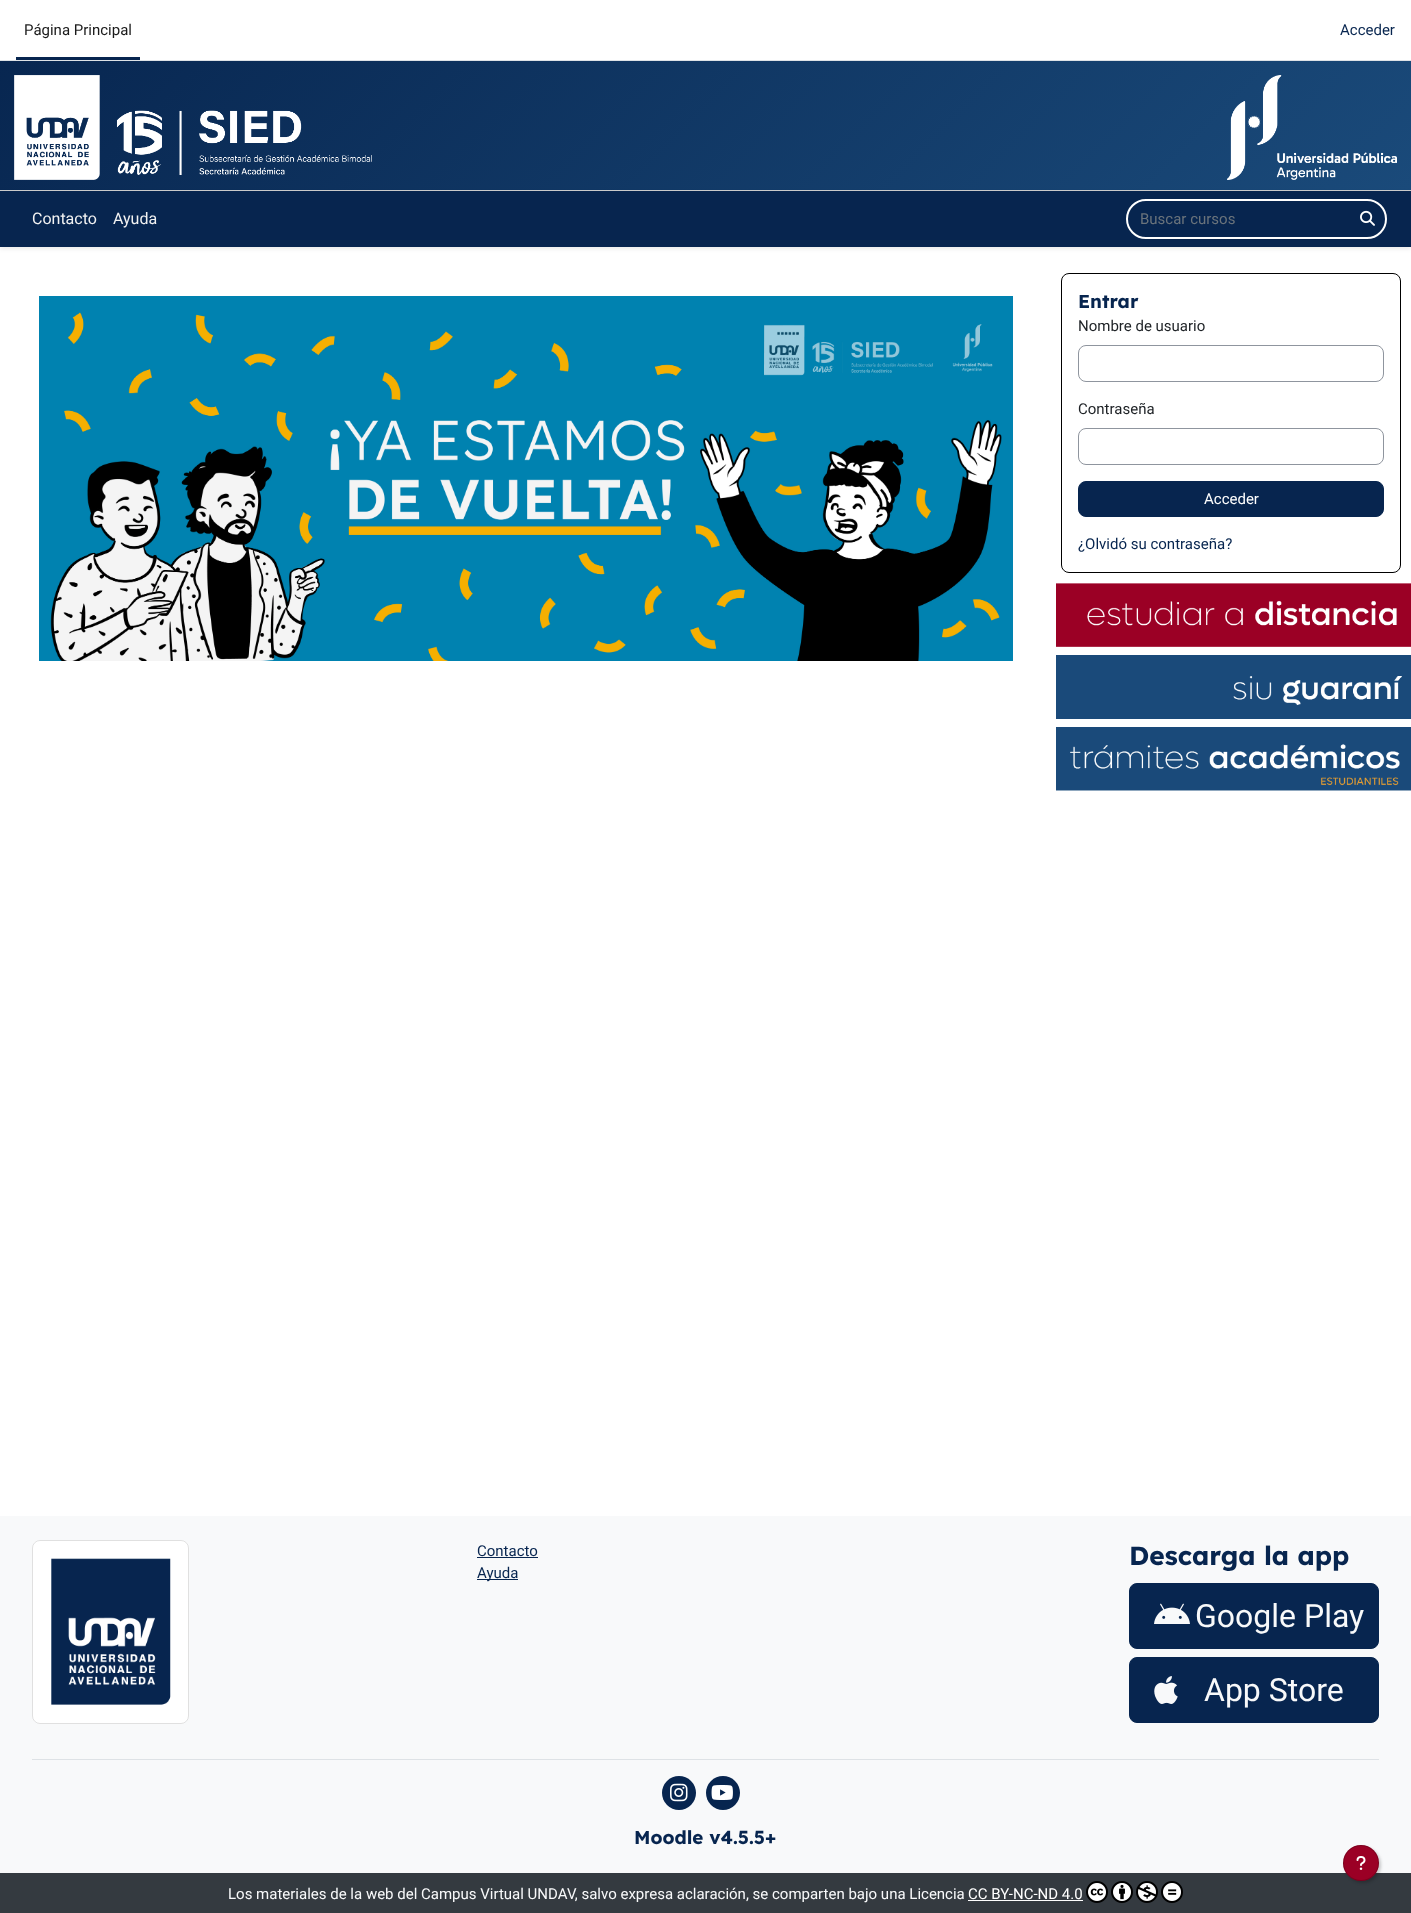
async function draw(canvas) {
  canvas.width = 1411
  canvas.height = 1913
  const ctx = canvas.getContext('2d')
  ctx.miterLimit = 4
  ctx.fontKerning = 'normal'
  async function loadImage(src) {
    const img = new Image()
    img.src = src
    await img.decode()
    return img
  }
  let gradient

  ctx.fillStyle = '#fff'
  ctx.fillRect(0, 0, 1411, 1913)
  ctx.fillStyle = '#dee2e6'
  ctx.fillRect(0, 60, 1411, 1)
  ctx.fillStyle = '#07254f'
  ctx.fillRect(16, 57, 124, 3)
  ctx.font = '15px Roboto'
  ctx.fillStyle = '#1a1a1a'
  ctx.fillText('Página Principal', 24, 35)
  ctx.fillStyle = '#07254f'
  ctx.fillText('Acceder', 1340, 35)
  gradient = ctx.createLinearGradient(305, -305, 1106, 495)
  gradient.addColorStop(0, '#07254f')
  gradient.addColorStop(1, '#1a4a7a')
  ctx.fillStyle = gradient
  ctx.fillRect(0, 61, 1411, 129)
  ctx.fillStyle = '#ccc'
  ctx.fillRect(0, 190, 1411, 1)
  ctx.drawImage(await loadImage('image0.png'), 14, 75, 358, 105)
  ctx.drawImage(await loadImage('image1.png'), 1227, 75, 170, 105)
  ctx.fillStyle = '#00000014'
  ctx.filter = 'blur(2px)'
  ctx.beginPath()
  ctx.rect(0, 193, 1411, 56)
  ctx.fill()
  ctx.filter = 'none'
  ctx.fillStyle = '#07254f'
  ctx.fillRect(0, 191, 1411, 56)
  ctx.font = '16px Roboto'
  ctx.fillStyle = '#f2f2f2'
  ctx.fillText('Contacto', 32, 224)
  ctx.fillText('Ayuda', 113, 224)
  ctx.beginPath()
  ctx.roundRect(1127, 200, 259, 38, 19)
  ctx.strokeStyle = '#fff'
  ctx.lineWidth = 2
  ctx.stroke()
  ctx.font = '15px Roboto'
  ctx.fillStyle = '#6a737b'
  ctx.fillText('Buscar cursos', 1140, 224)
  ctx.drawImage(await loadImage('image2.png'), 1360, 210, 15, 16)
  ctx.drawImage(await loadImage('image3.png'), 39, 296, 974, 365)
  ctx.beginPath()
  ctx.roundRect(1061.5, 273.5, 339, 299, 7.5)
  ctx.strokeStyle = '#000'
  ctx.lineWidth = 1
  ctx.stroke()
  ctx.font = 'bold 18.75px Lexend'
  ctx.fillStyle = '#07254f'
  ctx.fillText('Entrar', 1078, 308)
  ctx.font = '15px Roboto'
  ctx.fillStyle = '#1d2125'
  ctx.fillText('Nombre de usuario', 1078, 331)
  ctx.beginPath()
  ctx.roundRect(1078.5, 345.5, 305, 36, 7.5)
  ctx.strokeStyle = '#8f959e'
  ctx.stroke()
  ctx.fillText('Contraseña', 1078, 414)
  ctx.beginPath()
  ctx.roundRect(1078.5, 428.5, 305, 36, 7.5)
  ctx.stroke()
  ctx.fillStyle = '#07254f'
  ctx.beginPath()
  ctx.roundRect(1078.5, 481.5, 305, 35, 7.5)
  ctx.fill()
  ctx.strokeStyle = '#07254f'
  ctx.stroke()
  ctx.fillStyle = '#fff'
  ctx.fillText('Acceder', 1204, 504)
  ctx.fillStyle = '#07254f'
  ctx.fillText('¿Olvidó su contraseña?', 1078, 549)
  ctx.drawImage(await loadImage('image4.png'), 1056, 583, 355, 64)
  ctx.drawImage(await loadImage('image5.png'), 1056, 655, 355, 64)
  ctx.drawImage(await loadImage('image6.png'), 1056, 727, 355, 64)
  ctx.fillStyle = '#f8f9fa'
  ctx.fillRect(0, 1516, 1411, 357)
  ctx.fillStyle = '#dee2e6'
  ctx.fillRect(32, 1759, 1347, 1)
  ctx.fillStyle = '#fff'
  ctx.beginPath()
  ctx.roundRect(32, 1540, 157, 184, 8)
  ctx.fill()
  ctx.beginPath()
  ctx.roundRect(32.5, 1540.5, 156, 183, 7.5)
  ctx.strokeStyle = '#0000001f'
  ctx.stroke()
  ctx.drawImage(await loadImage('image7.png'), 51, 1558, 120, 147)
  ctx.fillStyle = '#07254f'
  ctx.fillText('Contacto', 477, 1556)
  ctx.fillRect(477, 1557, 61, 1)
  ctx.fillRect(477, 1579, 41, 1)
  ctx.fillText('Ayuda', 477, 1578)
  ctx.font = 'bold 26.25px Lexend'
  ctx.fillText('Descarga la app', 1129, 1565)
  ctx.beginPath()
  ctx.roundRect(1129.5, 1583.5, 249, 65, 7.5)
  ctx.fill()
  ctx.strokeStyle = '#07254f'
  ctx.stroke()
  ctx.drawImage(await loadImage('image8.png'), 1154, 1603, 36, 21)
  ctx.font = '32px Roboto'
  ctx.fillStyle = '#f8f9fa'
  ctx.fillText('Google Play', 1195, 1627)
  ctx.fillStyle = '#07254f'
  ctx.beginPath()
  ctx.roundRect(1129.5, 1657.5, 249, 65, 7.5)
  ctx.fill()
  ctx.stroke()
  ctx.drawImage(await loadImage('image9.png'), 1154, 1676, 24, 28)
  ctx.fillStyle = '#f8f9fa'
  ctx.fillText('App Store', 1204, 1701)
  ctx.fillStyle = '#07254f'
  ctx.beginPath()
  ctx.arc(679, 1793, 17, 0, 2 * Math.PI)
  ctx.fill()
  ctx.drawImage(await loadImage('image10.png'), 670, 1783, 18, 19)
  ctx.beginPath()
  ctx.arc(723, 1793, 17, 0, 2 * Math.PI)
  ctx.fill()
  ctx.drawImage(await loadImage('image11.png'), 711, 1785, 22, 15)
  ctx.font = 'bold 18.75px Lexend'
  ctx.fillText('Moodle v4.5.5+', 634, 1844)
  ctx.fillStyle = '#343a40'
  ctx.fillRect(0, 1873, 1411, 40)
  ctx.fillStyle = '#00000033'
  ctx.filter = 'blur(1.5px)'
  ctx.beginPath()
  ctx.roundRect(1345, 1847, 36, 36, 18)
  ctx.fill()
  ctx.filter = 'none'
  ctx.fillStyle = '#9b0025'
  ctx.beginPath()
  ctx.arc(1361, 1863, 18, 0, 2 * Math.PI)
  ctx.fill()
  ctx.beginPath()
  ctx.arc(1361, 1863, 17.5, 0, 2 * Math.PI)
  ctx.strokeStyle = '#00000033'
  ctx.stroke()
  ctx.drawImage(await loadImage('image12.png'), 1356, 1856, 10, 14)
  ctx.font = '15px Roboto'
  ctx.fillStyle = '#f8f9fa'
  ctx.fillText('Los materiales de la web del Campus Virtual UNDAV, salvo expresa aclaración, se comparten bajo una Licencia', 228, 1899)
  ctx.fillStyle = '#fff'
  ctx.fillText('CC BY-NC-ND 4.0', 968, 1899)
  ctx.fillRect(968, 1900, 115, 1)
  ctx.drawImage(await loadImage('image13.png'), 1086, 1881, 22, 22)
  ctx.drawImage(await loadImage('image14.png'), 1111, 1881, 22, 22)
  ctx.drawImage(await loadImage('image15.png'), 1136, 1881, 22, 22)
  ctx.drawImage(await loadImage('image16.png'), 1161, 1881, 22, 22)
}

draw(document.querySelector('canvas'))
